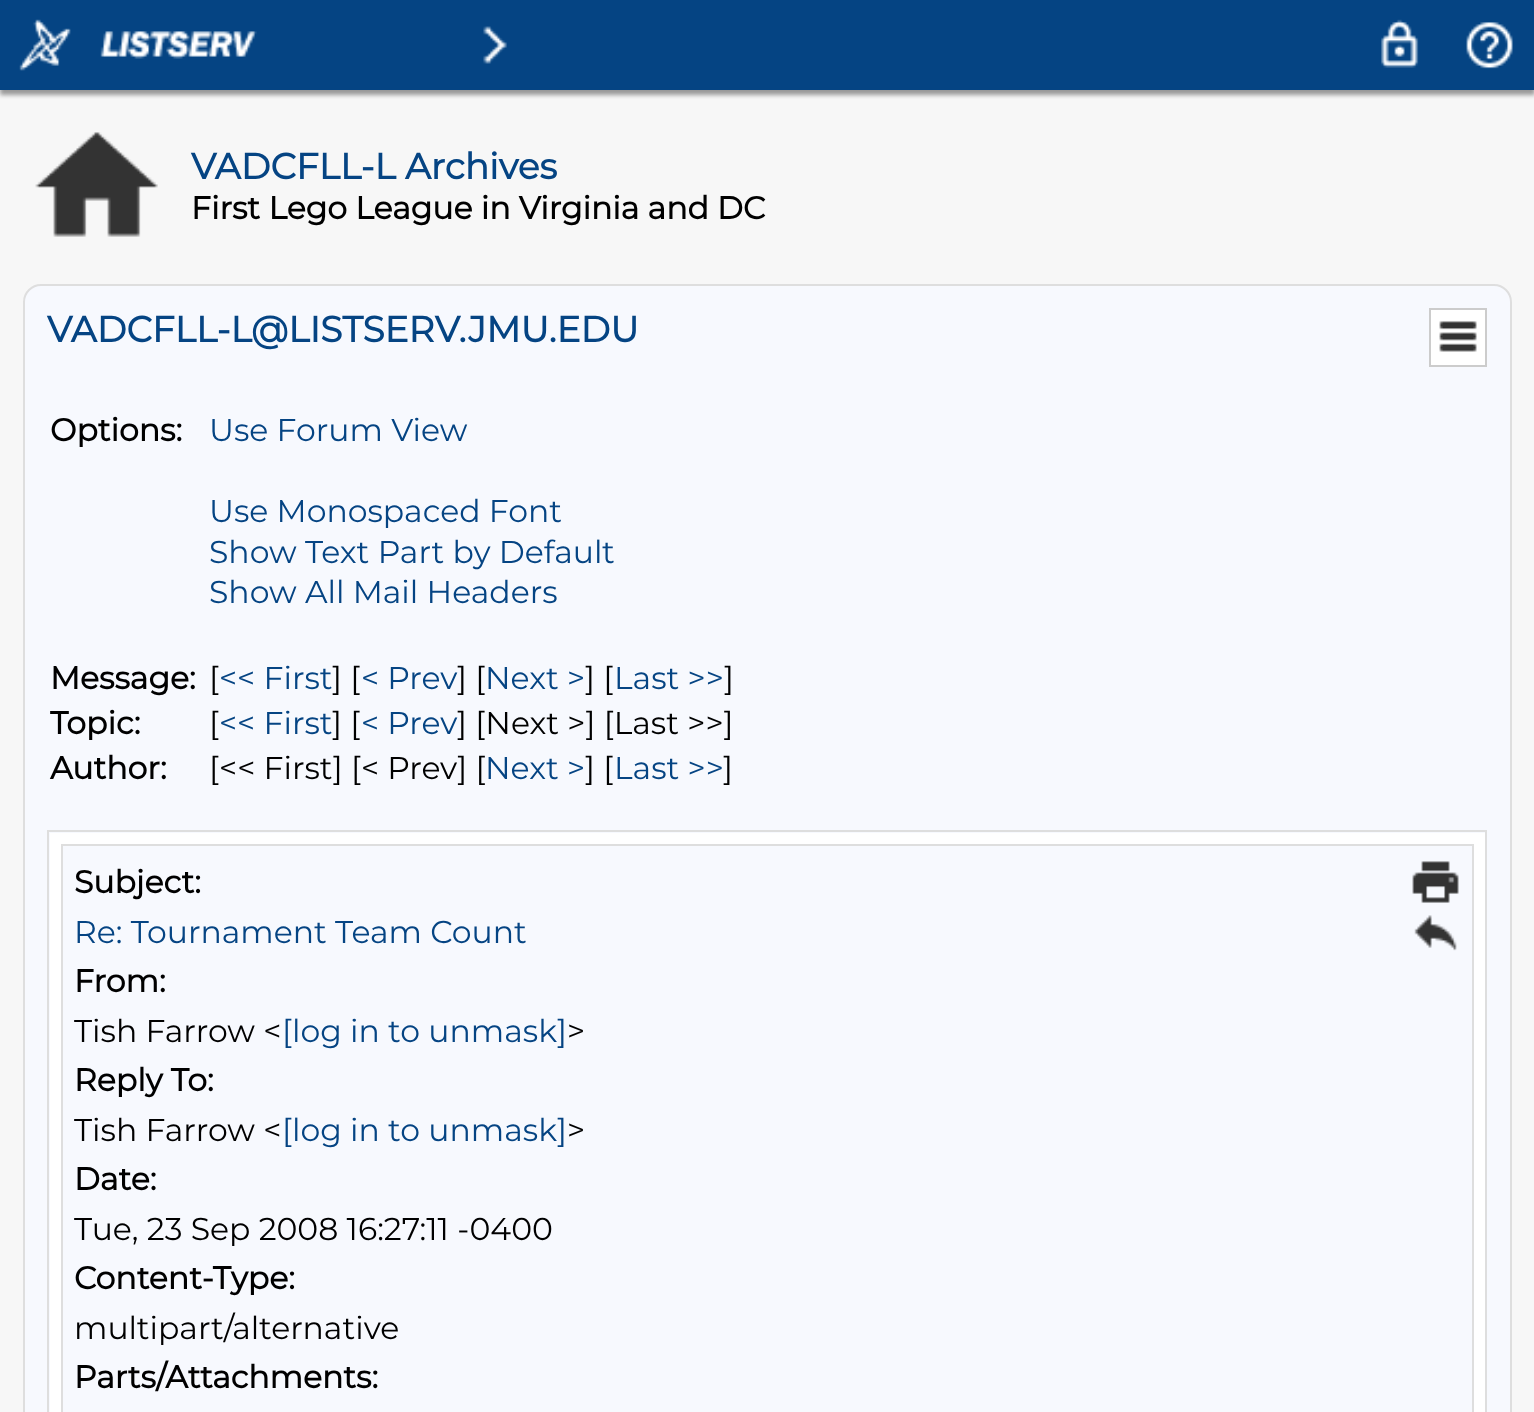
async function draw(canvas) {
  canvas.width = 1534
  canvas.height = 1412
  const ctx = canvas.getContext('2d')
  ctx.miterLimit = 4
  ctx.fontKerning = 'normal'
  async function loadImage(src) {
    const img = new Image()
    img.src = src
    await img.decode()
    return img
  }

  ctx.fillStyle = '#f7f7f7'
  ctx.fillRect(0, 0, 1534, 1412)
  ctx.fillStyle = '#999'
  ctx.filter = 'blur(2px)'
  ctx.beginPath()
  ctx.rect(0, 5, 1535, 90)
  ctx.fill()
  ctx.filter = 'none'
  ctx.fillStyle = '#054483'
  ctx.fillRect(0, 0, 1534, 90)
  ctx.drawImage(await loadImage('image0.png'), 19, 19, 52, 52)
  ctx.drawImage(await loadImage('image1.png'), 100, 31, 157, 28)
  ctx.drawImage(await loadImage('image2.png'), 483, 26, 24, 38)
  ctx.drawImage(await loadImage('image3.png'), 1381, 19, 38, 49)
  ctx.drawImage(await loadImage('image4.png'), 1466, 22, 47, 47)
  ctx.drawImage(await loadImage('image5.png'), 35, 132, 123, 105)
  ctx.font = 'bold 36px Montserrat'
  ctx.fillText('VADCFLL-L Archives', 191, 179)
  ctx.font = 'bold 31.5px Montserrat'
  ctx.fillStyle = '#000'
  ctx.fillText('First Lego League in Virginia and DC', 191, 219)
  ctx.fillStyle = '#f7f9fe'
  ctx.beginPath()
  ctx.roundRect(24, 285, 1487, 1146, 17)
  ctx.fill()
  ctx.strokeStyle = '#dedede'
  ctx.lineWidth = 2
  ctx.stroke()
  ctx.font = 'bold 36px Montserrat'
  ctx.fillStyle = '#054483'
  ctx.fillText('VADCFLL-L@LISTSERV.JMU.EDU', 47, 342)
  ctx.fillStyle = '#fff'
  ctx.beginPath()
  ctx.rect(1430, 309, 56, 57)
  ctx.fill()
  ctx.strokeStyle = '#ccc'
  ctx.stroke()
  ctx.drawImage(await loadImage('image6.png'), 1439, 321, 38, 31)
  ctx.font = 'bold 31.5px Montserrat'
  ctx.fillStyle = '#000'
  ctx.fillText('Options:', 50, 441)
  ctx.font = '100 31.5px Montserrat'
  ctx.fillStyle = '#054483'
  ctx.fillText('Use Forum View', 209, 441)
  ctx.fillText('Use Monospaced Font', 209, 522)
  ctx.fillText('Show Text Part by Default', 209, 563)
  ctx.fillText('Show All Mail Headers', 209, 603)
  ctx.font = 'bold 31.5px Montserrat'
  ctx.fillStyle = '#000'
  ctx.fillText('Message:', 50, 689)
  ctx.font = '100 31.5px Montserrat'
  ctx.fillText('[', 209, 689)
  ctx.fillStyle = '#054483'
  ctx.fillText('<< First', 219, 689)
  ctx.fillStyle = '#000'
  ctx.fillText('] [', 332, 689)
  ctx.fillStyle = '#054483'
  ctx.fillText('< Prev', 361, 689)
  ctx.fillStyle = '#000'
  ctx.fillText('] [', 457, 689)
  ctx.fillStyle = '#054483'
  ctx.fillText('Next >', 485, 689)
  ctx.fillStyle = '#000'
  ctx.fillText('] [', 585, 689)
  ctx.fillStyle = '#054483'
  ctx.fillText('Last >>', 614, 689)
  ctx.fillStyle = '#000'
  ctx.fillText(']', 724, 689)
  ctx.font = 'bold 31.5px Montserrat'
  ctx.fillText('Topic:', 50, 734)
  ctx.font = '100 31.5px Montserrat'
  ctx.fillText('[', 209, 734)
  ctx.fillStyle = '#054483'
  ctx.fillText('<< First', 219, 734)
  ctx.fillStyle = '#000'
  ctx.fillText('] [', 332, 734)
  ctx.fillStyle = '#054483'
  ctx.fillText('< Prev', 361, 734)
  ctx.fillStyle = '#000'
  ctx.fillText('] [Next >] [Last >>]', 457, 734)
  ctx.font = 'bold 31.5px Montserrat'
  ctx.fillText('Author:', 50, 779)
  ctx.font = '100 31.5px Montserrat'
  ctx.fillText('[<< First] [< Prev] [', 209, 779)
  ctx.fillStyle = '#054483'
  ctx.fillText('Next >', 485, 779)
  ctx.fillStyle = '#000'
  ctx.fillText('] [', 585, 779)
  ctx.fillStyle = '#054483'
  ctx.fillText('Last >>', 614, 779)
  ctx.fillStyle = '#000'
  ctx.fillText(']', 723, 779)
  ctx.strokeStyle = '#dedede'
  ctx.strokeRect(48, 831, 1438, 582)
  ctx.fillStyle = '#fff'
  ctx.fillRect(50, 833, 1435, 579)
  ctx.strokeRect(62, 845, 1411, 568)
  ctx.fillStyle = '#f7f9fe'
  ctx.fillRect(63, 846, 1409, 566)
  ctx.font = 'bold 31.5px Montserrat'
  ctx.fillStyle = '#000'
  ctx.fillText('Subject:', 74, 893)
  ctx.font = '100 31.5px Montserrat'
  ctx.fillStyle = '#054483'
  ctx.fillText('Re: Tournament Team Count', 74, 943)
  ctx.font = 'bold 31.5px Montserrat'
  ctx.fillStyle = '#000'
  ctx.fillText('From:', 74, 992)
  ctx.font = '100 31.5px Montserrat'
  ctx.fillText('Tish Farrow <', 74, 1042)
  ctx.fillStyle = '#054483'
  ctx.fillText('[log in to unmask]', 282, 1042)
  ctx.fillStyle = '#000'
  ctx.fillText('>', 567, 1042)
  ctx.font = 'bold 31.5px Montserrat'
  ctx.fillText('Reply To:', 74, 1091)
  ctx.font = '100 31.5px Montserrat'
  ctx.fillText('Tish Farrow <', 74, 1141)
  ctx.fillStyle = '#054483'
  ctx.fillText('[log in to unmask]', 282, 1141)
  ctx.fillStyle = '#000'
  ctx.fillText('>', 567, 1141)
  ctx.font = 'bold 31.5px Montserrat'
  ctx.fillText('Date:', 74, 1190)
  ctx.font = '100 31.5px Montserrat'
  ctx.fillText('Tue, 23 Sep 2008 16:27:11 -0400', 74, 1240)
  ctx.font = 'bold 31.5px Montserrat'
  ctx.fillText('Content-Type:', 74, 1289)
  ctx.font = '100 31.5px Montserrat'
  ctx.fillText('multipart/alternative', 74, 1339)
  ctx.font = 'bold 31.5px Montserrat'
  ctx.fillText('Parts/Attachments:', 74, 1388)
  ctx.drawImage(await loadImage('image7.png'), 1412, 861, 47, 42)
  ctx.drawImage(await loadImage('image8.png'), 1414, 915, 43, 36)
}

draw(document.querySelector('canvas'))
